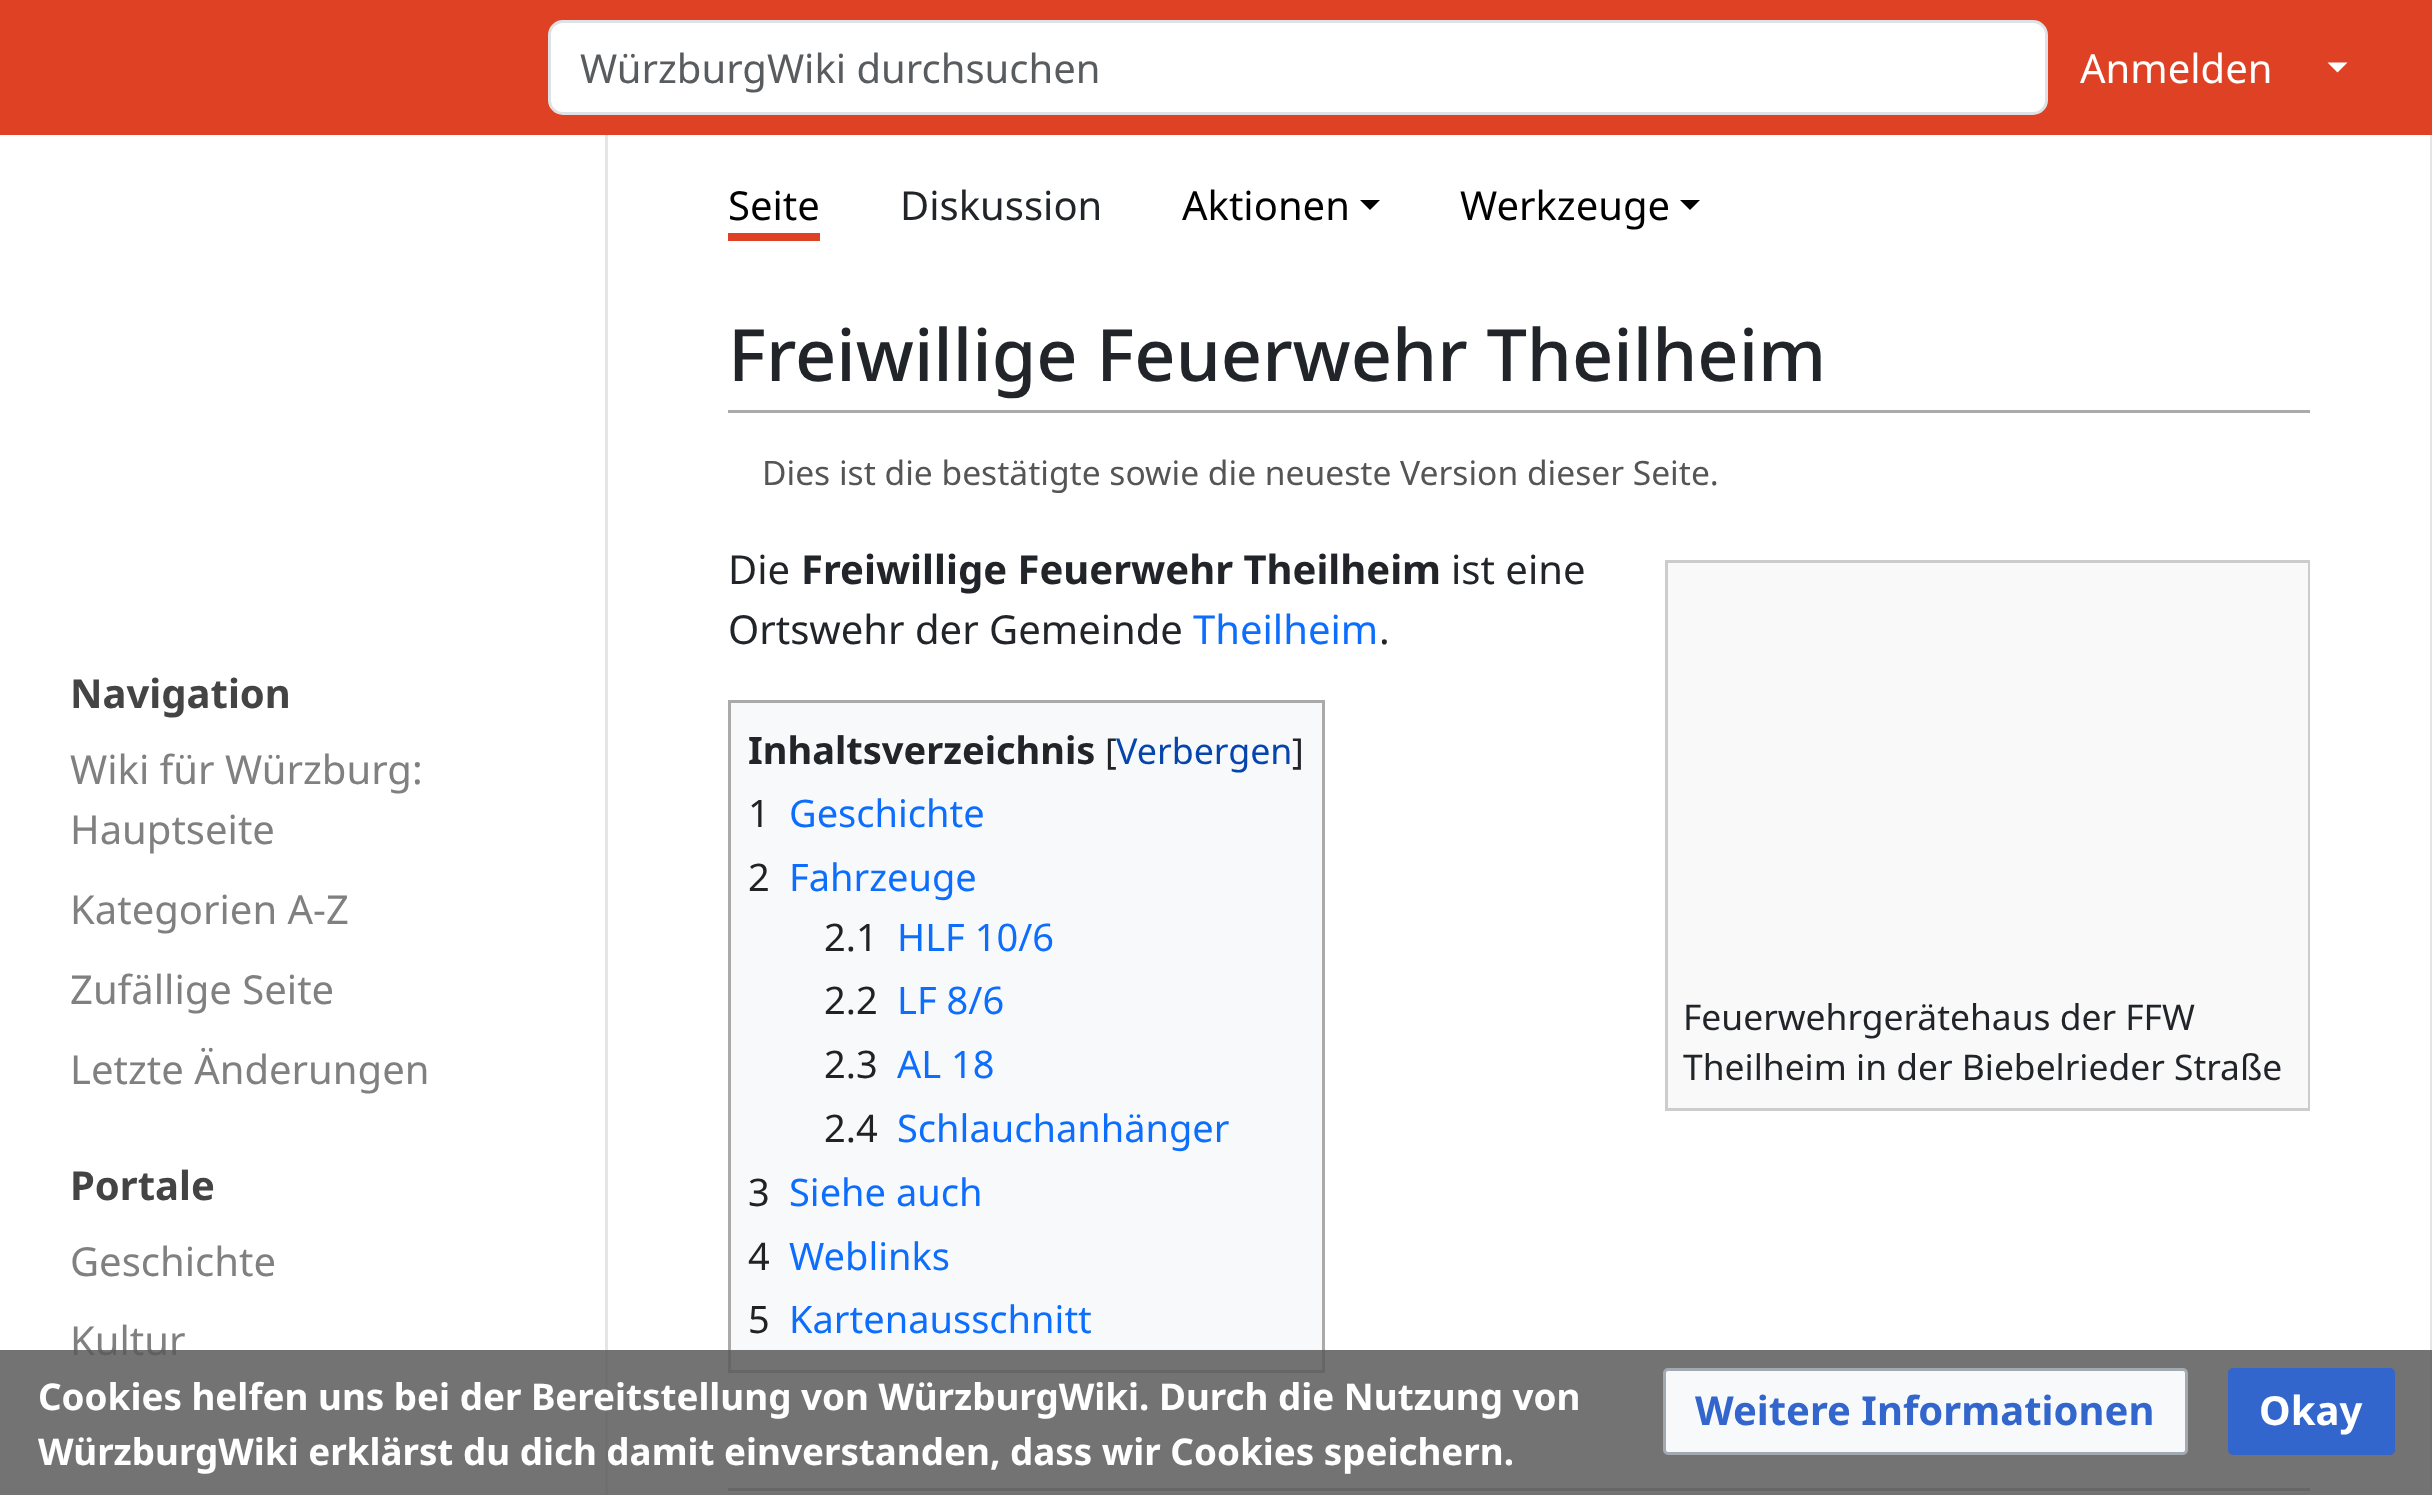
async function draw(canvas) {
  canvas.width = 2432
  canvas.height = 1495
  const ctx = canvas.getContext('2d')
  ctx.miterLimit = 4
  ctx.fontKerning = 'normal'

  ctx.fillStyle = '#fff'
  ctx.fillRect(0, 0, 2432, 1495)
  ctx.fillStyle = '#df4124'
  ctx.fillRect(0, 0, 2432, 135)
  ctx.fillStyle = '#fff'
  ctx.beginPath()
  ctx.roundRect(549.5, 21.5, 1497, 92, 13.5)
  ctx.fill()
  ctx.strokeStyle = '#dee2e6'
  ctx.lineWidth = 3
  ctx.stroke()
  ctx.font = '40px Noto Sans'
  ctx.fillStyle = '#595c5f'
  ctx.fillText('WürzburgWiki durchsuchen', 580, 83)
  ctx.fillStyle = '#fff'
  ctx.fillText('Anmelden', 2080, 83)
  ctx.beginPath()
  ctx.moveTo(2327.5, 62.5)
  ctx.lineTo(2347.5, 62.5)
  ctx.lineTo(2337.5, 72.5)
  ctx.closePath()
  ctx.fill()
  ctx.fillStyle = '#e5e5e5'
  ctx.fillRect(2430, 135, 2, 1360)
  ctx.fillStyle = '#000'
  ctx.fillText('Seite', 728, 220)
  ctx.fillStyle = '#df4124'
  ctx.fillRect(728, 233, 92, 8)
  ctx.fillStyle = '#212529'
  ctx.fillText('Diskussion', 900, 220)
  ctx.fillStyle = '#000'
  ctx.fillText('Aktionen', 1182, 220)
  ctx.beginPath()
  ctx.moveTo(1360, 200)
  ctx.lineTo(1380, 200)
  ctx.lineTo(1370, 210)
  ctx.closePath()
  ctx.fill()
  ctx.fillText('Werkzeuge', 1460, 220)
  ctx.beginPath()
  ctx.moveTo(1680, 200)
  ctx.lineTo(1700, 200)
  ctx.lineTo(1690, 210)
  ctx.closePath()
  ctx.fill()
  ctx.fillStyle = '#aaa'
  ctx.fillRect(728, 410, 1582, 3)
  ctx.font = '500 72px Noto Sans'
  ctx.fillStyle = '#212529'
  ctx.fillText('Freiwillige Feuerwehr Theilheim', 728, 381)
  ctx.font = '33.6px Noto Sans'
  ctx.fillStyle = '#555'
  ctx.fillText('Dies ist die bestätigte sowie die neueste Version dieser Seite.', 762, 485)
  ctx.font = '40px Noto Sans'
  ctx.fillStyle = '#212529'
  ctx.fillText('Die', 728, 584)
  ctx.font = 'bold 40px Noto Sans'
  ctx.fillText('Freiwillige Feuerwehr Theilheim', 801, 584)
  ctx.font = '40px Noto Sans'
  ctx.fillText('ist eine', 1451, 584)
  ctx.fillText('Ortswehr der Gemeinde', 728, 644)
  ctx.fillStyle = '#0d6efd'
  ctx.fillText('Theilheim', 1193, 644)
  ctx.fillStyle = '#212529'
  ctx.fillText('.', 1379, 644)
  ctx.fillStyle = '#f8f9fa'
  ctx.beginPath()
  ctx.rect(729.5, 701.5, 594, 670)
  ctx.fill()
  ctx.strokeStyle = '#aaa'
  ctx.stroke()
  ctx.font = 'bold 38px Noto Sans'
  ctx.fillStyle = '#212529'
  ctx.fillText('Inhaltsverzeichnis', 748, 764)
  ctx.font = '35.75px Noto Sans'
  ctx.fillText('[', 1105, 764)
  ctx.fillStyle = '#0645ad'
  ctx.fillText('Verbergen', 1116, 764)
  ctx.fillStyle = '#212529'
  ctx.fillText(']', 1292, 764)
  ctx.font = '38px Noto Sans'
  ctx.fillStyle = '#222'
  ctx.fillText('1', 748, 827)
  ctx.fillStyle = '#0d6efd'
  ctx.fillText('Geschichte', 789, 827)
  ctx.fillStyle = '#222'
  ctx.fillText('2', 748, 891)
  ctx.fillStyle = '#0d6efd'
  ctx.fillText('Fahrzeuge', 789, 891)
  ctx.fillStyle = '#222'
  ctx.fillText('2.1', 824, 951)
  ctx.fillStyle = '#0d6efd'
  ctx.fillText('HLF 10/6', 897, 951)
  ctx.fillStyle = '#222'
  ctx.fillText('2.2', 824, 1014)
  ctx.fillStyle = '#0d6efd'
  ctx.fillText('LF 8/6', 897, 1014)
  ctx.fillStyle = '#222'
  ctx.fillText('2.3', 824, 1078)
  ctx.fillStyle = '#0d6efd'
  ctx.fillText('AL 18', 897, 1078)
  ctx.fillStyle = '#222'
  ctx.fillText('2.4', 824, 1142)
  ctx.fillStyle = '#0d6efd'
  ctx.fillText('Schlauchanhänger', 897, 1142)
  ctx.fillStyle = '#222'
  ctx.fillText('3', 748, 1206)
  ctx.fillStyle = '#0d6efd'
  ctx.fillText('Siehe auch', 789, 1206)
  ctx.fillStyle = '#222'
  ctx.fillText('4', 748, 1270)
  ctx.fillStyle = '#0d6efd'
  ctx.fillText('Weblinks', 789, 1270)
  ctx.fillStyle = '#222'
  ctx.fillText('5', 748, 1333)
  ctx.fillStyle = '#0d6efd'
  ctx.fillText('Kartenausschnitt', 789, 1333)
  ctx.fillStyle = '#f9f9f9'
  ctx.fillRect(1668, 563, 640, 545)
  ctx.fillStyle = '#ccc'
  ctx.fillRect(1665, 560, 645, 3)
  ctx.fillRect(1665, 1108, 645, 3)
  ctx.fillRect(2308, 560, 2, 550)
  ctx.fillRect(1665, 560, 3, 550)
  ctx.font = '35.4px Noto Sans'
  ctx.fillStyle = '#212529'
  ctx.fillText('Feuerwehrgerätehaus der FFW', 1683, 1030)
  ctx.fillText('Theilheim in der Biebelrieder Straße', 1683, 1080)
  ctx.fillStyle = '#aaa'
  ctx.fillRect(728, 1488, 1582, 3)
  ctx.fillStyle = '#e5e5e5'
  ctx.fillRect(605, 135, 3, 1360)
  ctx.font = '40px Noto Sans'
  ctx.fillStyle = '#808080'
  ctx.fillText('Kultur', 70, 1355)
  ctx.fillStyle = '#5a5a5ad9'
  ctx.fillRect(0, 1350, 2432, 145)
  ctx.font = 'bold 36.8px Noto Sans'
  ctx.fillStyle = '#fff'
  ctx.fillText('Cookies helfen uns bei der Bereitstellung von WürzburgWiki. Durch die Nutzung von', 38, 1410)
  ctx.fillText('WürzburgWiki erklärst du dich damit einverstanden, dass wir Cookies speichern.', 38, 1465)
  ctx.fillStyle = '#f8f9fa'
  ctx.beginPath()
  ctx.roundRect(1664.5, 1369.5, 522, 84, 3.5)
  ctx.fill()
  ctx.strokeStyle = '#a2a9b1'
  ctx.stroke()
  ctx.font = 'bold 40px Noto Sans'
  ctx.fillStyle = '#36c'
  ctx.fillText('Weitere Informationen', 1695, 1425)
  ctx.beginPath()
  ctx.roundRect(2229.5, 1369.5, 164, 84, 3.5)
  ctx.fill()
  ctx.strokeStyle = '#36c'
  ctx.stroke()
  ctx.fillStyle = '#fff'
  ctx.fillText('Okay', 2259, 1425)
  ctx.fillStyle = '#444'
  ctx.fillText('Navigation', 70, 708)
  ctx.font = '40px Noto Sans'
  ctx.fillStyle = '#808080'
  ctx.fillText('Wiki für Würzburg:', 70, 784)
  ctx.fillText('Hauptseite', 70, 844)
  ctx.fillText('Kategorien A-Z', 70, 924)
  ctx.fillText('Zufällige Seite', 70, 1004)
  ctx.fillText('Letzte Änderungen', 70, 1084)
  ctx.font = 'bold 40px Noto Sans'
  ctx.fillStyle = '#444'
  ctx.fillText('Portale', 70, 1200)
  ctx.font = '40px Noto Sans'
  ctx.fillStyle = '#808080'
  ctx.fillText('Geschichte', 70, 1276)
}

draw(document.querySelector('canvas'))
